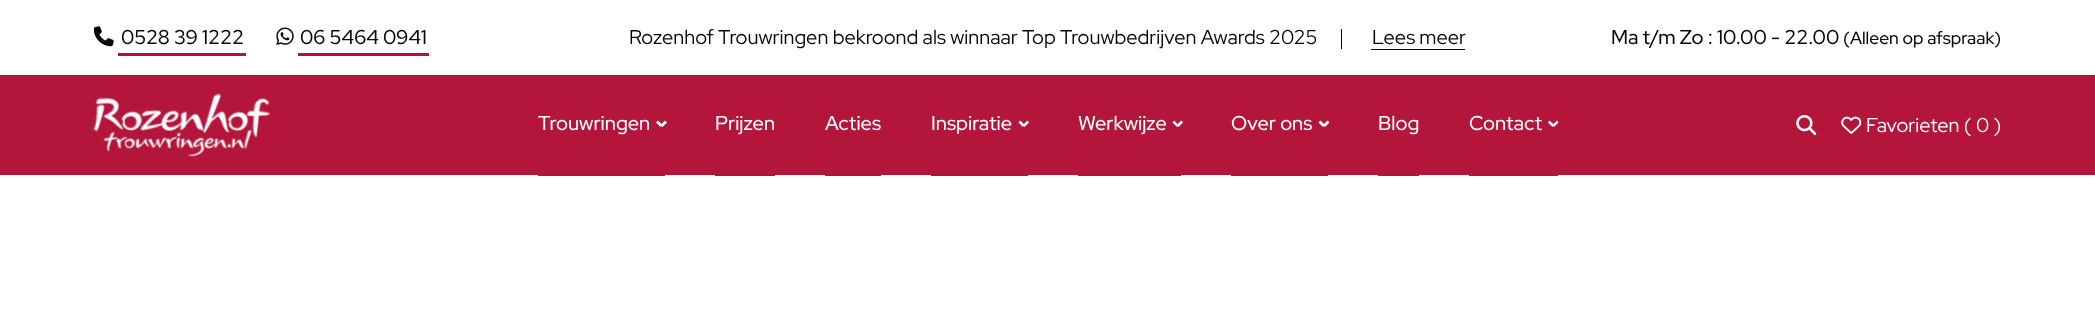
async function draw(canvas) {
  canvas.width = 2095
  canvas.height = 335
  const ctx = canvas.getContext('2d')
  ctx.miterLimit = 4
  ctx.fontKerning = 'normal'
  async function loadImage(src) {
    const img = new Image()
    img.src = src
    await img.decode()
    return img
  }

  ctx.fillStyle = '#fff'
  ctx.fillRect(0, 0, 2095, 335)
  ctx.drawImage(await loadImage('image0.png'), 94, 26, 20, 21)
  ctx.font = '500 20px Red Hat Display'
  ctx.fillStyle = '#070707'
  ctx.fillText('0528 39 1222', 121, 44)
  ctx.fillStyle = '#b2133e'
  ctx.fillRect(118, 53, 128, 3)
  ctx.drawImage(await loadImage('image1.png'), 276, 27, 18, 18)
  ctx.fillStyle = '#070707'
  ctx.fillText('06 5464 0941', 300, 44)
  ctx.fillStyle = '#b2133e'
  ctx.fillRect(298, 53, 131, 3)
  ctx.font = '20px Red Hat Display'
  ctx.fillStyle = '#070707'
  ctx.fillText('Rozenhof Trouwringen bekroond als winnaar Top Trouwbedrijven Awards 2025', 629, 44)
  ctx.fillRect(1341, 29, 1, 20)
  ctx.fillText('Lees meer', 1372, 44)
  ctx.fillRect(1371, 49, 94, 1)
  ctx.font = '500 20px Red Hat Display'
  ctx.fillText('Ma t/m Zo : 10.00 - 22.00', 1611, 44)
  ctx.font = '500 17.5px Red Hat Display'
  ctx.fillText('(Alleen op afspraak)', 1843, 44)
  ctx.fillStyle = '#b4153a'
  ctx.fillRect(0, 75, 2095, 100)
  ctx.drawImage(await loadImage('image2.png'), 93, 93, 177, 64)
  ctx.fillStyle = '#b2133e'
  ctx.fillRect(538, 173, 127, 3)
  ctx.font = '500 20px Red Hat Display'
  ctx.fillStyle = '#fff'
  ctx.fillText('Trouwringen', 538, 130)
  ctx.beginPath()
  ctx.moveTo(665, 120.5)
  ctx.lineTo(667, 122.5)
  ctx.lineTo(662.5, 127)
  ctx.lineTo(660.5, 125)
  ctx.closePath()
  ctx.fill()
  ctx.beginPath()
  ctx.moveTo(658, 120.5)
  ctx.lineTo(662.5, 125)
  ctx.lineTo(660.5, 127)
  ctx.lineTo(656, 122.5)
  ctx.closePath()
  ctx.fill()
  ctx.fillStyle = '#b2133e'
  ctx.fillRect(715, 173, 60, 3)
  ctx.fillStyle = '#fff'
  ctx.fillText('Prijzen', 715, 130)
  ctx.fillStyle = '#b2133e'
  ctx.fillRect(825, 173, 56, 3)
  ctx.fillStyle = '#fff'
  ctx.fillText('Acties', 825, 130)
  ctx.fillStyle = '#b2133e'
  ctx.fillRect(931, 173, 97, 3)
  ctx.fillStyle = '#fff'
  ctx.fillText('Inspiratie', 931, 130)
  ctx.beginPath()
  ctx.moveTo(1027.5, 120.5)
  ctx.lineTo(1029, 122.5)
  ctx.lineTo(1024.5, 127)
  ctx.lineTo(1023, 125)
  ctx.closePath()
  ctx.fill()
  ctx.beginPath()
  ctx.moveTo(1020.5, 120.5)
  ctx.lineTo(1024.5, 125)
  ctx.lineTo(1023, 127)
  ctx.lineTo(1018.5, 122.5)
  ctx.closePath()
  ctx.fill()
  ctx.fillStyle = '#b2133e'
  ctx.fillRect(1078, 173, 103, 3)
  ctx.fillStyle = '#fff'
  ctx.fillText('Werkwijze', 1078, 130)
  ctx.beginPath()
  ctx.moveTo(1181, 120.5)
  ctx.lineTo(1183, 122.5)
  ctx.lineTo(1178.5, 127)
  ctx.lineTo(1177, 125)
  ctx.closePath()
  ctx.fill()
  ctx.beginPath()
  ctx.moveTo(1174, 120.5)
  ctx.lineTo(1178.5, 125)
  ctx.lineTo(1177, 127)
  ctx.lineTo(1172.5, 122.5)
  ctx.closePath()
  ctx.fill()
  ctx.fillStyle = '#b2133e'
  ctx.fillRect(1231, 173, 97, 3)
  ctx.fillStyle = '#fff'
  ctx.fillText('Over ons', 1231, 130)
  ctx.beginPath()
  ctx.moveTo(1327.5, 120.5)
  ctx.lineTo(1329.5, 122.5)
  ctx.lineTo(1325, 127)
  ctx.lineTo(1323, 125)
  ctx.closePath()
  ctx.fill()
  ctx.beginPath()
  ctx.moveTo(1320.5, 120.5)
  ctx.lineTo(1325, 125)
  ctx.lineTo(1323, 127)
  ctx.lineTo(1318.5, 122.5)
  ctx.closePath()
  ctx.fill()
  ctx.fillStyle = '#b2133e'
  ctx.fillRect(1378, 173, 41, 3)
  ctx.fillStyle = '#fff'
  ctx.fillText('Blog', 1378, 130)
  ctx.fillStyle = '#b2133e'
  ctx.fillRect(1469, 173, 89, 3)
  ctx.fillStyle = '#fff'
  ctx.fillText('Contact', 1469, 130)
  ctx.beginPath()
  ctx.moveTo(1557, 120.5)
  ctx.lineTo(1558.5, 122.5)
  ctx.lineTo(1554, 127)
  ctx.lineTo(1552.5, 125)
  ctx.closePath()
  ctx.fill()
  ctx.beginPath()
  ctx.moveTo(1549.5, 120.5)
  ctx.lineTo(1554, 125)
  ctx.lineTo(1552.5, 127)
  ctx.lineTo(1548, 122.5)
  ctx.closePath()
  ctx.fill()
  ctx.drawImage(await loadImage('image3.png'), 1796, 115, 21, 20)
  ctx.drawImage(await loadImage('image4.png'), 1841, 116, 21, 18)
  ctx.font = '20px Red Hat Display'
  ctx.fillText('Favorieten ( 0 )', 1866, 132)
}

draw(document.querySelector('canvas'))
